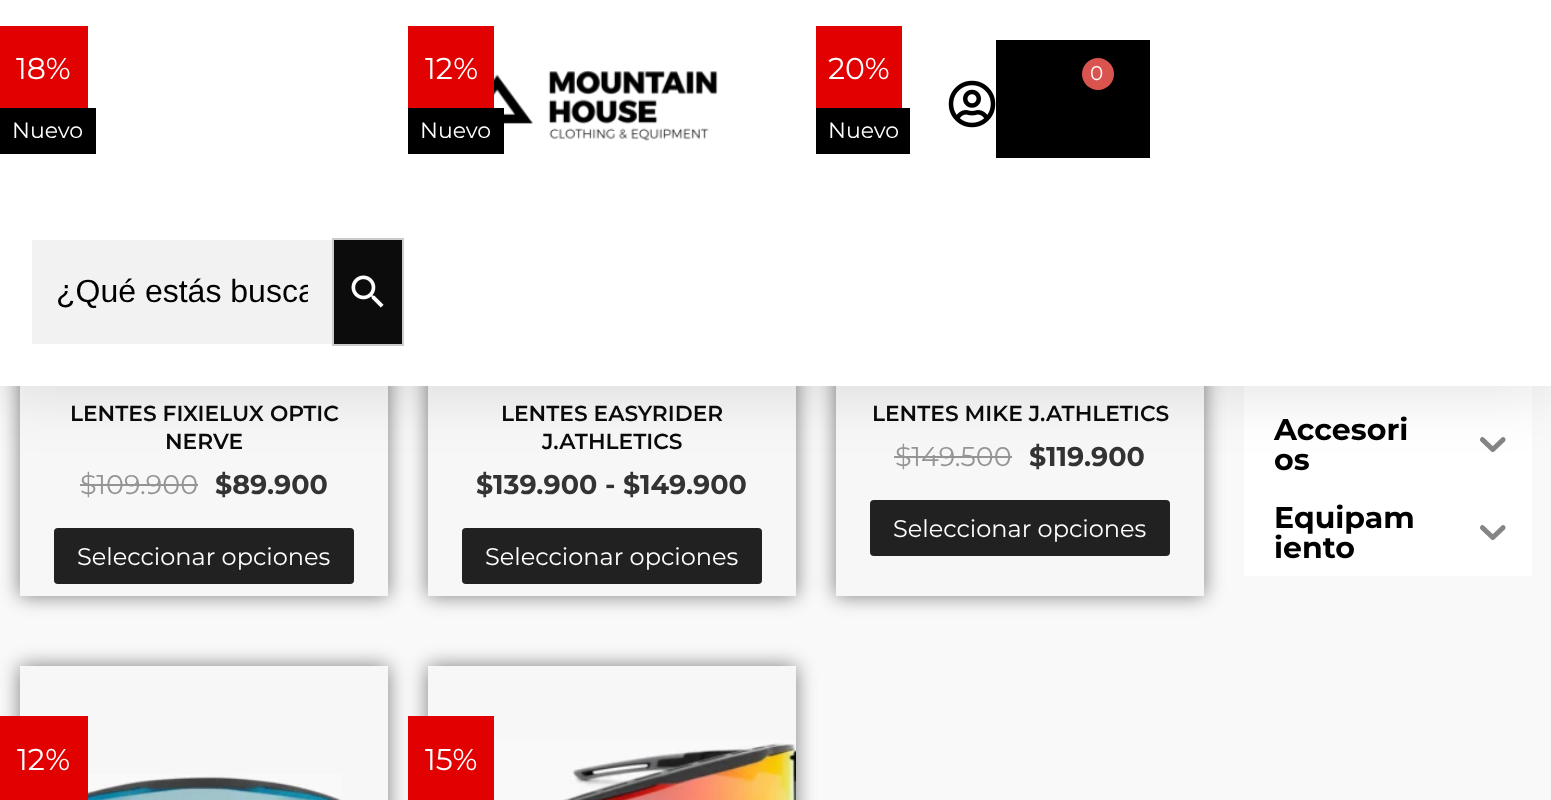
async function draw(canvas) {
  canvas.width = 1551
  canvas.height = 800
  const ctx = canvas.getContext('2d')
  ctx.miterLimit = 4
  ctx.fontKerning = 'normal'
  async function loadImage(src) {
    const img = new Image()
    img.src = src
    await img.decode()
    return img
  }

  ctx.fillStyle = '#f9f9f9'
  ctx.fillRect(0, 0, 1551, 800)
  ctx.fillStyle = '#00000080'
  ctx.filter = 'blur(10px)'
  ctx.beginPath()
  ctx.rect(20, -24, 368, 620)
  ctx.fill()
  ctx.filter = 'none'
  ctx.fillStyle = '#f7f7f7'
  ctx.fillRect(20, 386, 368, 210)
  ctx.fillStyle = '#959595'
  ctx.fillRect(80, 484, 118, 2)
  ctx.fillStyle = '#00000080'
  ctx.filter = 'blur(10px)'
  ctx.beginPath()
  ctx.rect(428, -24, 368, 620)
  ctx.fill()
  ctx.filter = 'none'
  ctx.fillStyle = '#f7f7f7'
  ctx.fillRect(428, 386, 368, 210)
  ctx.fillStyle = '#00000080'
  ctx.filter = 'blur(10px)'
  ctx.beginPath()
  ctx.rect(836, -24, 368, 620)
  ctx.fill()
  ctx.filter = 'none'
  ctx.fillStyle = '#f7f7f7'
  ctx.fillRect(836, 386, 368, 210)
  ctx.fillStyle = '#959595'
  ctx.fillRect(894, 456, 118, 2)
  ctx.fillStyle = '#fff'
  ctx.fillRect(1244, 386, 288, 190)
  ctx.drawImage(await loadImage('image2.png'), 1480, 437, 26, 15)
  ctx.fillStyle = '#0000001a'
  ctx.filter = 'blur(30px)'
  ctx.beginPath()
  ctx.rect(0, 10, 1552, 386)
  ctx.fill()
  ctx.filter = 'none'
  ctx.fillStyle = '#fff'
  ctx.fillRect(0, 0, 1551, 386)
  ctx.fillStyle = '#e10101'
  ctx.fillRect(0, 26, 88, 82)
  ctx.font = '30px Montserrat'
  ctx.fillStyle = '#fff'
  ctx.fillText('18%', 16, 79)
  ctx.fillStyle = '#000'
  ctx.fillRect(0, 108, 96, 46)
  ctx.font = '22px Montserrat'
  ctx.fillStyle = '#fff'
  ctx.fillText('Nuevo', 12, 138)
  ctx.font = '600 21.75px Montserrat'
  ctx.fillStyle = '#0a0a0a'
  ctx.fillText('LENTES FIXIELUX OPTIC', 70, 421)
  ctx.fillText('NERVE', 165, 449)
  ctx.font = '27px Montserrat'
  ctx.fillStyle = '#959595'
  ctx.fillText('$109.900', 80, 494)
  ctx.font = 'bold 27px Montserrat'
  ctx.fillStyle = '#333'
  ctx.fillText('$89.900', 215, 494)
  ctx.fillStyle = '#212121'
  ctx.beginPath()
  ctx.roundRect(54, 528, 300, 56, 4)
  ctx.fill()
  ctx.font = '24px Montserrat'
  ctx.fillStyle = '#fff'
  ctx.fillText('Seleccionar opciones', 77, 565)
  ctx.fillStyle = '#e10101'
  ctx.fillRect(408, 26, 86, 82)
  ctx.font = '30px Montserrat'
  ctx.fillStyle = '#fff'
  ctx.fillText('12%', 425, 79)
  ctx.drawImage(await loadImage('image3.png'), 494, 70, 224, 71)
  ctx.fillStyle = '#000'
  ctx.fillRect(408, 108, 96, 46)
  ctx.font = '22px Montserrat'
  ctx.fillStyle = '#fff'
  ctx.fillText('Nuevo', 420, 138)
  ctx.font = '600 21.75px Montserrat'
  ctx.fillStyle = '#0a0a0a'
  ctx.fillText('LENTES EASYRIDER', 501, 421)
  ctx.fillText('J.ATHLETICS', 542, 449)
  ctx.font = 'bold 27px Montserrat'
  ctx.fillStyle = '#333'
  ctx.fillText('$139.900 - $149.900', 476, 494)
  ctx.fillStyle = '#212121'
  ctx.beginPath()
  ctx.roundRect(462, 528, 300, 56, 4)
  ctx.fill()
  ctx.font = '24px Montserrat'
  ctx.fillStyle = '#fff'
  ctx.fillText('Seleccionar opciones', 485, 565)
  ctx.fillStyle = '#e10101'
  ctx.fillRect(816, 26, 86, 82)
  ctx.font = '30px Montserrat'
  ctx.fillStyle = '#fff'
  ctx.fillText('20%', 828, 79)
  ctx.fillStyle = '#000'
  ctx.fillRect(816, 108, 94, 46)
  ctx.font = '22px Montserrat'
  ctx.fillStyle = '#fff'
  ctx.fillText('Nuevo', 828, 138)
  ctx.font = '600 21.75px Montserrat'
  ctx.fillStyle = '#0a0a0a'
  ctx.fillText('LENTES MIKE J.ATHLETICS', 872, 421)
  ctx.font = '27px Montserrat'
  ctx.fillStyle = '#959595'
  ctx.fillText('$149.500', 895, 466)
  ctx.font = 'bold 27px Montserrat'
  ctx.fillStyle = '#333'
  ctx.fillText('$119.900', 1029, 466)
  ctx.fillStyle = '#212121'
  ctx.beginPath()
  ctx.roundRect(870, 500, 300, 56, 4)
  ctx.fill()
  ctx.font = '24px Montserrat'
  ctx.fillStyle = '#fff'
  ctx.fillText('Seleccionar opciones', 893, 537)
  ctx.fillStyle = '#00000080'
  ctx.filter = 'blur(10px)'
  ctx.beginPath()
  ctx.rect(20, 666, 368, 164)
  ctx.fill()
  ctx.filter = 'none'
  ctx.fillStyle = '#f7f7f7'
  ctx.fillRect(20, 666, 368, 134)
  ctx.fillStyle = '#e10101'
  ctx.fillRect(0, 716, 88, 84)
  ctx.font = '30px Montserrat'
  ctx.fillStyle = '#fff'
  ctx.fillText('12%', 17, 770)
  ctx.drawImage(await loadImage('image0.png'), 88, 774, 253, 26)
  ctx.fillStyle = '#00000080'
  ctx.filter = 'blur(10px)'
  ctx.beginPath()
  ctx.rect(428, 666, 368, 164)
  ctx.fill()
  ctx.filter = 'none'
  ctx.fillStyle = '#f7f7f7'
  ctx.fillRect(428, 666, 368, 74)
  ctx.fillStyle = '#e10101'
  ctx.fillRect(408, 716, 86, 84)
  ctx.fillStyle = '#fff'
  ctx.fillText('15%', 425, 770)
  ctx.drawImage(await loadImage('image1.png'), 494, 740, 302, 60)
  ctx.font = 'bold 30px Montserrat'
  ctx.fillStyle = '#000'
  ctx.fillText('Accesori', 1274, 440)
  ctx.fillText('os', 1274, 470)
  ctx.fillText('Equipam', 1274, 528)
  ctx.fillText('iento', 1274, 558)
  ctx.drawImage(await loadImage('image2.png'), 1480, 525, 26, 15)
  ctx.fillRect(996, 40, 154, 118)
  ctx.fillStyle = '#d9534f'
  ctx.beginPath()
  ctx.arc(1098, 74, 16, 0, 2 * Math.PI)
  ctx.fill()
  ctx.font = '20px Montserrat'
  ctx.fillStyle = '#fff'
  ctx.fillText('0', 1090, 80)
  ctx.drawImage(await loadImage('image4.png'), 948, 80, 48, 48)
  ctx.fillStyle = '#f2f2f2'
  ctx.fillRect(32, 240, 300, 104)
  ctx.save()
  ctx.beginPath()
  ctx.rect(56, 274, 252, 36)
  ctx.clip()
  ctx.font = '32px Liberation Sans'
  ctx.fillStyle = '#000'
  ctx.fillText('¿Qué estás busca', 56, 302)
  ctx.restore()
  ctx.fillStyle = '#0c0c0c'
  ctx.beginPath()
  ctx.rect(333, 239, 70, 106)
  ctx.fill()
  ctx.strokeStyle = '#ccc'
  ctx.lineWidth = 2
  ctx.stroke()
  ctx.drawImage(await loadImage('image5.png'), 351, 275, 33, 33)
}

draw(document.querySelector('canvas'))
